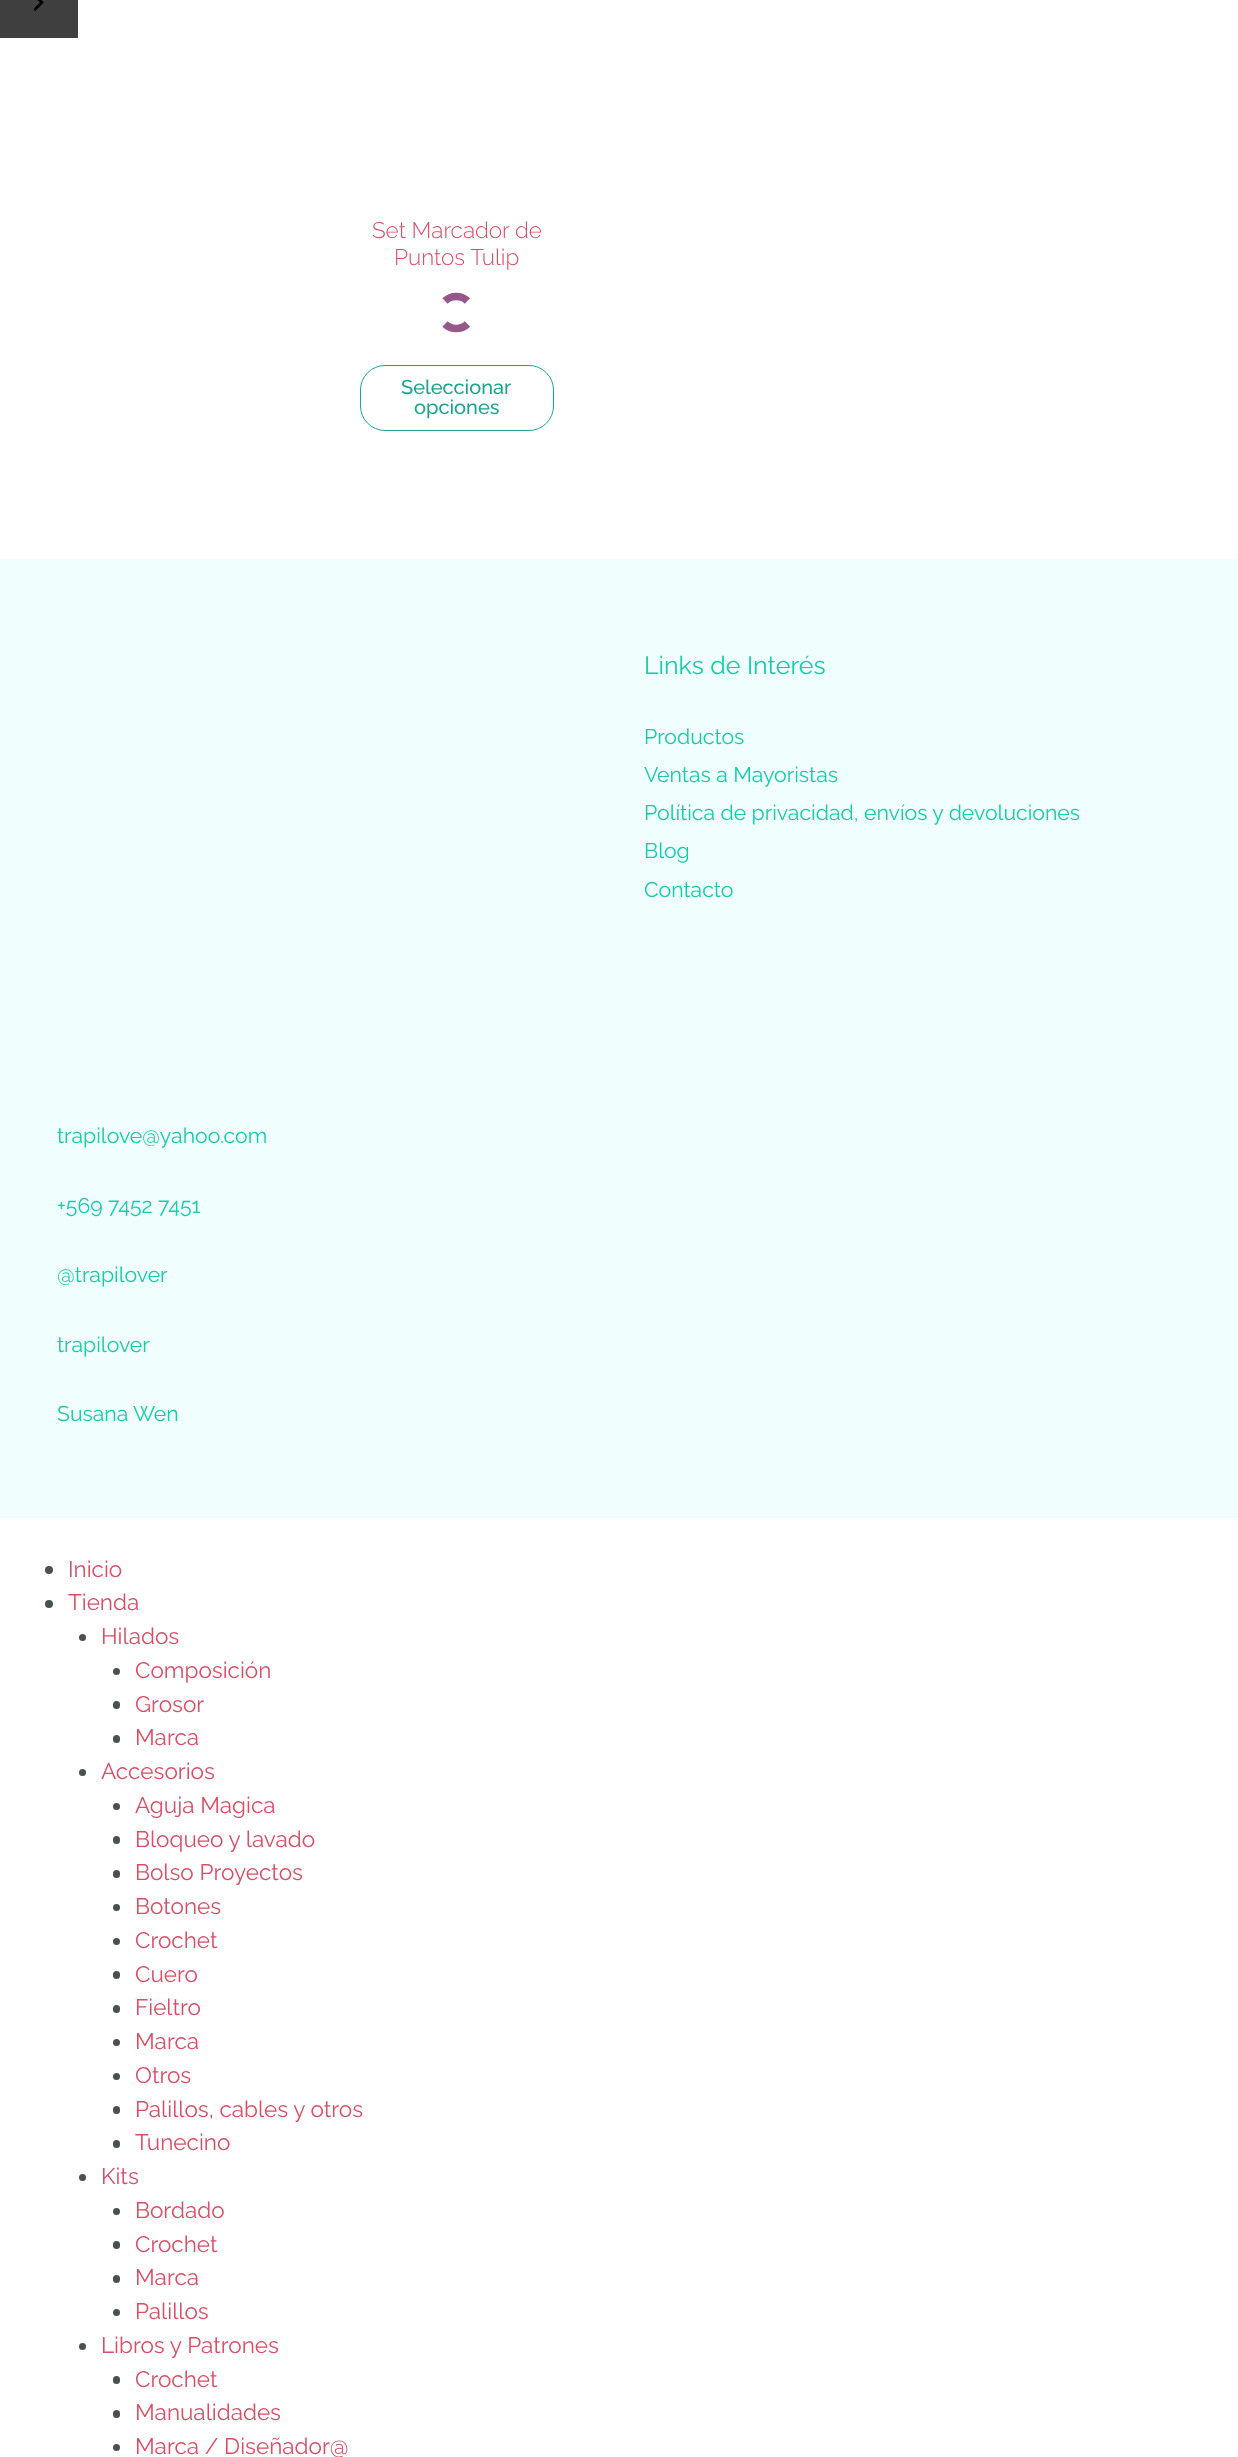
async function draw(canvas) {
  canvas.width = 1238
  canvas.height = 2457
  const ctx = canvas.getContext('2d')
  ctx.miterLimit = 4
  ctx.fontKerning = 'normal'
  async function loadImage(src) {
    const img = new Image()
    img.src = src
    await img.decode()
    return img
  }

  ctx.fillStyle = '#fff'
  ctx.fillRect(0, 0, 1238, 2457)
  ctx.fillStyle = '#3f3f3f'
  ctx.fillRect(0, 0, 78, 38)
  ctx.drawImage(await loadImage('image0.png'), 33, 0, 11, 11)
  ctx.font = '300 22.5px Raleway'
  ctx.fillStyle = '#d94e66'
  ctx.fillText('Set Marcador de', 372, 238)
  ctx.fillText('Puntos Tulip', 394, 265)
  ctx.beginPath()
  ctx.moveTo(445, 301)
  ctx.bezierCurveTo(451, 295, 461.5, 295, 467.5, 301)
  ctx.moveTo(467.5, 324)
  ctx.bezierCurveTo(461.5, 330, 451, 330, 445, 324)
  ctx.strokeStyle = '#96588a'
  ctx.lineWidth = 7.5
  ctx.stroke()
  ctx.beginPath()
  ctx.roundRect(360.5, 365.5, 193, 65, 24.5)
  ctx.strokeStyle = '#1aa590'
  ctx.lineWidth = 1
  ctx.stroke()
  ctx.font = '500 20px Raleway'
  ctx.fillStyle = '#1aa590'
  ctx.fillText('Seleccionar', 401, 394)
  ctx.fillText('opciones', 414, 414)
  ctx.fillStyle = '#f0fffd'
  ctx.fillRect(0, 559, 1238, 959)
  ctx.font = '25px Raleway'
  ctx.fillStyle = '#17cbaa'
  ctx.fillText('Links de Interés', 644, 674)
  ctx.font = '21.25px Raleway'
  ctx.fillText('Productos', 644, 744)
  ctx.fillText('Ventas a Mayoristas', 644, 782)
  ctx.fillText('Política de privacidad, envíos y devoluciones', 644, 820)
  ctx.fillText('Blog', 644, 858)
  ctx.fillText('Contacto', 644, 897)
  ctx.fillText('trapilove@yahoo.com', 57, 1143)
  ctx.fillText('+569 7452 7451', 57, 1213)
  ctx.fillText('@trapilover', 57, 1282)
  ctx.fillText('trapilover', 57, 1352)
  ctx.fillText('Susana Wen', 57, 1421)
  ctx.fillStyle = '#485150'
  ctx.beginPath()
  ctx.arc(49, 1570, 4, 0, 2 * Math.PI)
  ctx.fill()
  ctx.font = '22.5px Raleway'
  ctx.fillStyle = '#d94e66'
  ctx.fillText('Inicio', 68, 1577)
  ctx.fillStyle = '#485150'
  ctx.beginPath()
  ctx.arc(49, 1604, 4, 0, 2 * Math.PI)
  ctx.fill()
  ctx.fillStyle = '#d94e66'
  ctx.fillText('Tienda', 68, 1610)
  ctx.fillStyle = '#485150'
  ctx.beginPath()
  ctx.arc(82.5, 1637.5, 3.5, 0, 2 * Math.PI)
  ctx.fill()
  ctx.fillStyle = '#d94e66'
  ctx.fillText('Hilados', 101, 1644)
  ctx.fillStyle = '#485150'
  ctx.beginPath()
  ctx.arc(116.5, 1671.5, 3.5, 0, 2 * Math.PI)
  ctx.fill()
  ctx.fillStyle = '#d94e66'
  ctx.fillText('Composición', 135, 1678)
  ctx.fillStyle = '#485150'
  ctx.beginPath()
  ctx.roundRect(113, 1701, 7, 8, 3.5)
  ctx.fill()
  ctx.fillStyle = '#d94e66'
  ctx.fillText('Grosor', 135, 1712)
  ctx.fillStyle = '#485150'
  ctx.beginPath()
  ctx.roundRect(113, 1735, 7, 8, 3.5)
  ctx.fill()
  ctx.fillStyle = '#d94e66'
  ctx.fillText('Marca', 135, 1745)
  ctx.fillStyle = '#485150'
  ctx.beginPath()
  ctx.arc(82.5, 1772.5, 3.5, 0, 2 * Math.PI)
  ctx.fill()
  ctx.fillStyle = '#d94e66'
  ctx.fillText('Accesorios', 101, 1779)
  ctx.fillStyle = '#485150'
  ctx.beginPath()
  ctx.arc(116.5, 1806.5, 3.5, 0, 2 * Math.PI)
  ctx.fill()
  ctx.fillStyle = '#d94e66'
  ctx.fillText('Aguja Magica', 135, 1813)
  ctx.fillStyle = '#485150'
  ctx.beginPath()
  ctx.roundRect(113, 1836, 7, 8, 3.5)
  ctx.fill()
  ctx.fillStyle = '#d94e66'
  ctx.fillText('Bloqueo y lavado', 135, 1847)
  ctx.fillStyle = '#485150'
  ctx.beginPath()
  ctx.roundRect(113, 1870, 7, 8, 3.5)
  ctx.fill()
  ctx.fillStyle = '#d94e66'
  ctx.fillText('Bolso Proyectos', 135, 1880)
  ctx.fillStyle = '#485150'
  ctx.beginPath()
  ctx.arc(116.5, 1907.5, 3.5, 0, 2 * Math.PI)
  ctx.fill()
  ctx.fillStyle = '#d94e66'
  ctx.fillText('Botones', 135, 1914)
  ctx.fillStyle = '#485150'
  ctx.beginPath()
  ctx.arc(116.5, 1941.5, 3.5, 0, 2 * Math.PI)
  ctx.fill()
  ctx.fillStyle = '#d94e66'
  ctx.fillText('Crochet', 135, 1948)
  ctx.fillStyle = '#485150'
  ctx.beginPath()
  ctx.roundRect(113, 1971, 7, 8, 3.5)
  ctx.fill()
  ctx.fillStyle = '#d94e66'
  ctx.fillText('Cuero', 135, 1982)
  ctx.fillStyle = '#485150'
  ctx.beginPath()
  ctx.roundRect(113, 2005, 7, 8, 3.5)
  ctx.fill()
  ctx.fillStyle = '#d94e66'
  ctx.fillText('Fieltro', 135, 2015)
  ctx.fillStyle = '#485150'
  ctx.beginPath()
  ctx.arc(116.5, 2042.5, 3.5, 0, 2 * Math.PI)
  ctx.fill()
  ctx.fillStyle = '#d94e66'
  ctx.fillText('Marca', 135, 2049)
  ctx.fillStyle = '#485150'
  ctx.beginPath()
  ctx.arc(116.5, 2076.5, 3.5, 0, 2 * Math.PI)
  ctx.fill()
  ctx.fillStyle = '#d94e66'
  ctx.fillText('Otros', 135, 2083)
  ctx.fillStyle = '#485150'
  ctx.beginPath()
  ctx.roundRect(113, 2106, 7, 8, 3.5)
  ctx.fill()
  ctx.fillStyle = '#d94e66'
  ctx.fillText('Palillos, cables y otros', 135, 2117)
  ctx.fillStyle = '#485150'
  ctx.beginPath()
  ctx.roundRect(113, 2140, 7, 8, 3.5)
  ctx.fill()
  ctx.fillStyle = '#d94e66'
  ctx.fillText('Tunecino', 135, 2150)
  ctx.fillStyle = '#485150'
  ctx.beginPath()
  ctx.arc(82.5, 2177.5, 3.5, 0, 2 * Math.PI)
  ctx.fill()
  ctx.fillStyle = '#d94e66'
  ctx.fillText('Kits', 101, 2184)
  ctx.fillStyle = '#485150'
  ctx.beginPath()
  ctx.arc(116.5, 2211.5, 3.5, 0, 2 * Math.PI)
  ctx.fill()
  ctx.fillStyle = '#d94e66'
  ctx.fillText('Bordado', 135, 2218)
  ctx.fillStyle = '#485150'
  ctx.beginPath()
  ctx.roundRect(113, 2241, 7, 8, 3.5)
  ctx.fill()
  ctx.fillStyle = '#d94e66'
  ctx.fillText('Crochet', 135, 2252)
  ctx.fillStyle = '#485150'
  ctx.beginPath()
  ctx.roundRect(113, 2275, 7, 8, 3.5)
  ctx.fill()
  ctx.fillStyle = '#d94e66'
  ctx.fillText('Marca', 135, 2285)
  ctx.fillStyle = '#485150'
  ctx.beginPath()
  ctx.arc(116.5, 2312.5, 3.5, 0, 2 * Math.PI)
  ctx.fill()
  ctx.fillStyle = '#d94e66'
  ctx.fillText('Palillos', 135, 2319)
  ctx.fillStyle = '#485150'
  ctx.beginPath()
  ctx.arc(82.5, 2346.5, 3.5, 0, 2 * Math.PI)
  ctx.fill()
  ctx.fillStyle = '#d94e66'
  ctx.fillText('Libros y Patrones', 101, 2353)
  ctx.fillStyle = '#485150'
  ctx.beginPath()
  ctx.roundRect(113, 2376, 7, 8, 3.5)
  ctx.fill()
  ctx.fillStyle = '#d94e66'
  ctx.fillText('Crochet', 135, 2387)
  ctx.fillStyle = '#485150'
  ctx.beginPath()
  ctx.roundRect(113, 2410, 7, 8, 3.5)
  ctx.fill()
  ctx.fillStyle = '#d94e66'
  ctx.fillText('Manualidades', 135, 2420)
  ctx.fillStyle = '#485150'
  ctx.beginPath()
  ctx.arc(116.5, 2447.5, 3.5, 0, 2 * Math.PI)
  ctx.fill()
  ctx.fillStyle = '#d94e66'
  ctx.fillText('Marca / Diseñador@', 135, 2454)
}

draw(document.querySelector('canvas'))
